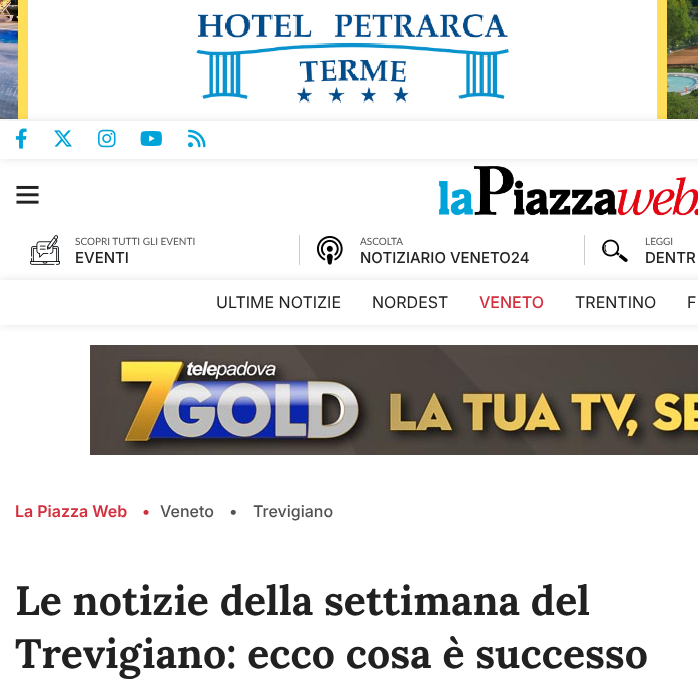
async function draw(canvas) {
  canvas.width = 698
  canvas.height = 698
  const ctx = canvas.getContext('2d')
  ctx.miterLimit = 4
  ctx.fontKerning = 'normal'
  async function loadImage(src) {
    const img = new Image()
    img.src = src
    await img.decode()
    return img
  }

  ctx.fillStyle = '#fff'
  ctx.fillRect(0, 0, 698, 698)
  ctx.drawImage(await loadImage('image0.png'), 0, 0, 698, 119)
  ctx.drawImage(await loadImage('image7.png'), 438, 166, 260, 50)
  ctx.save()
  ctx.beginPath()
  ctx.moveTo(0, 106)
  ctx.lineTo(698, 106)
  ctx.lineTo(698, 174)
  ctx.lineTo(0, 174)
  ctx.closePath()
  ctx.moveTo(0, 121)
  ctx.lineTo(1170, 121)
  ctx.lineTo(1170, 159)
  ctx.lineTo(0, 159)
  ctx.closePath()
  ctx.clip('evenodd')
  ctx.fillStyle = '#0000001c'
  ctx.filter = 'blur(4.5px)'
  ctx.beginPath()
  ctx.rect(0, 121, 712, 38)
  ctx.fill()
  ctx.filter = 'none'
  ctx.restore()
  ctx.drawImage(await loadImage('image1.png'), 15, 128, 12, 21)
  ctx.drawImage(await loadImage('image2.png'), 54, 130, 18, 17)
  ctx.drawImage(await loadImage('image3.png'), 98, 129, 18, 19)
  ctx.drawImage(await loadImage('image4.png'), 140, 131, 22, 15)
  ctx.drawImage(await loadImage('image5.png'), 188, 129, 18, 19)
  ctx.drawImage(await loadImage('image6.png'), 16, 185, 23, 19)
  ctx.fillStyle = '#ccc'
  ctx.fillRect(299, 235, 1, 30)
  ctx.drawImage(await loadImage('image8.png'), 30, 235, 30, 30)
  ctx.font = '10px Lato'
  ctx.fillStyle = '#525252'
  ctx.fillText('SCOPRI TUTTI GLI EVENTI', 75, 245)
  ctx.font = '500 15px Inter'
  ctx.fillStyle = '#212121'
  ctx.fillText('EVENTI', 75, 263)
  ctx.fillStyle = '#ccc'
  ctx.fillRect(584, 235, 1, 30)
  ctx.drawImage(await loadImage('image9.png'), 317, 236, 26, 29)
  ctx.font = '10px Lato'
  ctx.fillStyle = '#525252'
  ctx.fillText('ASCOLTA', 360, 245)
  ctx.font = '500 15px Inter'
  ctx.fillStyle = '#212121'
  ctx.fillText('NOTIZIARIO VENETO24', 360, 263)
  ctx.drawImage(await loadImage('image10.png'), 602, 239, 26, 23)
  ctx.font = '10px Lato'
  ctx.fillStyle = '#525252'
  ctx.fillText('LEGGI', 645, 245)
  ctx.font = '500 15px Inter'
  ctx.fillStyle = '#212121'
  ctx.fillText('DENTR', 645, 263)
  ctx.save()
  ctx.beginPath()
  ctx.moveTo(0, 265)
  ctx.lineTo(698, 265)
  ctx.lineTo(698, 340)
  ctx.lineTo(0, 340)
  ctx.closePath()
  ctx.moveTo(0, 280)
  ctx.lineTo(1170, 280)
  ctx.lineTo(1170, 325)
  ctx.lineTo(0, 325)
  ctx.closePath()
  ctx.clip('evenodd')
  ctx.fillStyle = '#0000001c'
  ctx.filter = 'blur(4.5px)'
  ctx.beginPath()
  ctx.rect(0, 280, 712, 45)
  ctx.fill()
  ctx.filter = 'none'
  ctx.restore()
  ctx.font = '16px Inter'
  ctx.fillText('ULTIME NOTIZIE', 216, 308)
  ctx.fillText('NORDEST', 372, 308)
  ctx.font = '500 16px Inter'
  ctx.fillStyle = '#d3303e'
  ctx.fillText('VENETO', 479, 308)
  ctx.font = '16px Inter'
  ctx.fillStyle = '#212121'
  ctx.fillText('TRENTINO', 575, 308)
  ctx.fillText('F', 687, 308)
  ctx.drawImage(await loadImage('image11.png'), 90, 345, 608, 110)
  ctx.font = '600 16px Inter'
  ctx.fillStyle = '#d3303e'
  ctx.fillText('La Piazza Web', 15, 517)
  ctx.fillText('•', 142, 517)
  ctx.font = '500 16px Inter'
  ctx.fillStyle = '#525252'
  ctx.fillText('Veneto', 160, 517)
  ctx.fillText('•', 229, 517)
  ctx.fillText('Trevigiano', 253, 517)
  ctx.font = 'bold 41px Lora'
  ctx.fillStyle = '#212121'
  ctx.fillText('Le notizie della settimana del', 15, 615)
  ctx.fillText('Trevigiano: ecco cosa è successo', 15, 668)
}

draw(document.querySelector('canvas'))
